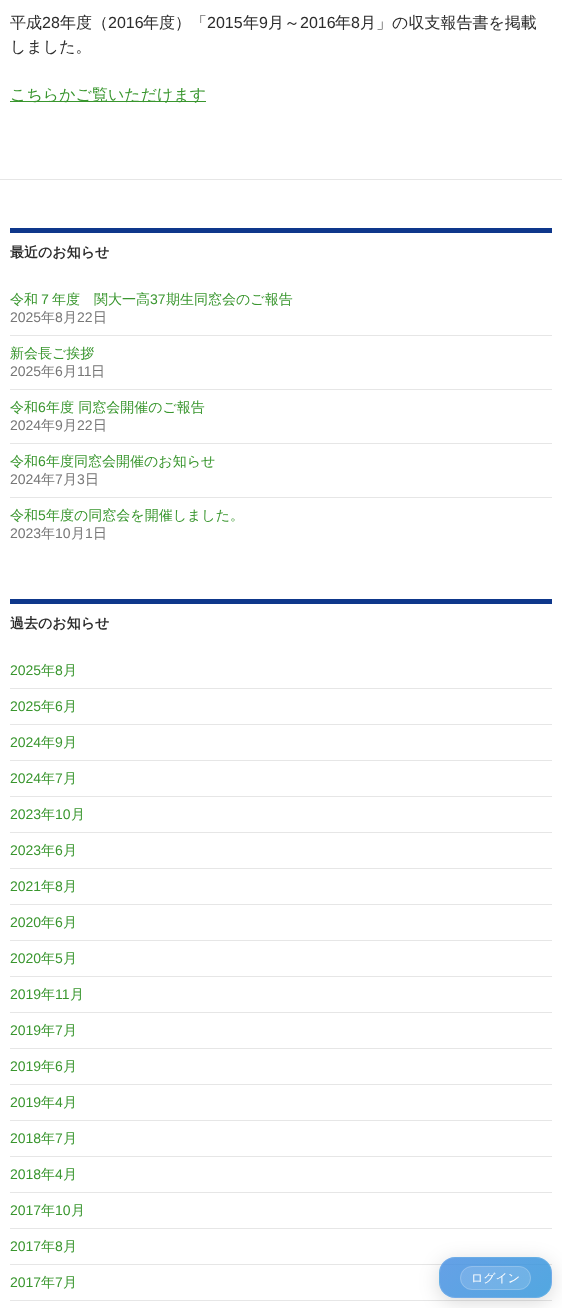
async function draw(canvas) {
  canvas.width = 562
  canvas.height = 1308
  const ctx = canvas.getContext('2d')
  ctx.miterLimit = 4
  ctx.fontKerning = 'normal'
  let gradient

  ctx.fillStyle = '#fff'
  ctx.fillRect(0, 0, 562, 1308)
  ctx.font = '500 16px WenQuanYi Zen Hei'
  ctx.fillStyle = '#2b2b2b'
  ctx.fillText('平成', 10, 28)
  ctx.font = '16px Liberation Sans'
  ctx.fillText('28', 42, 28)
  ctx.font = '500 16px WenQuanYi Zen Hei'
  ctx.fillText('年度（', 60, 28)
  ctx.font = '16px Liberation Sans'
  ctx.fillText('2016', 108, 28)
  ctx.font = '500 16px WenQuanYi Zen Hei'
  ctx.fillText('年度）「', 143, 28)
  ctx.font = '16px Liberation Sans'
  ctx.fillText('2015', 207, 28)
  ctx.font = '500 16px WenQuanYi Zen Hei'
  ctx.fillText('年', 243, 28)
  ctx.font = '16px Liberation Sans'
  ctx.fillText('9', 259, 28)
  ctx.font = '500 16px WenQuanYi Zen Hei'
  ctx.fillText('月～', 268, 28)
  ctx.font = '16px Liberation Sans'
  ctx.fillText('2016', 300, 28)
  ctx.font = '500 16px WenQuanYi Zen Hei'
  ctx.fillText('年', 335, 28)
  ctx.font = '16px Liberation Sans'
  ctx.fillText('8', 351, 28)
  ctx.font = '500 16px WenQuanYi Zen Hei'
  ctx.fillText('月」の収支報告書を掲載', 360, 28)
  ctx.fillText('しました。', 10, 52)
  ctx.fillStyle = '#39962e'
  ctx.fillRect(10, 101, 196, 1)
  ctx.fillText('こちらかご覧いただけます', 10, 100)
  ctx.fillStyle = '#e6e6e6'
  ctx.fillRect(0, 179, 562, 1)
  ctx.fillStyle = '#0e378b'
  ctx.fillRect(10, 228, 542, 5)
  ctx.font = 'bold 14px WenQuanYi Zen Hei'
  ctx.fillStyle = '#2b2b2b'
  ctx.fillText('最近のお知らせ', 10, 257)
  ctx.font = '500 14px WenQuanYi Zen Hei'
  ctx.fillStyle = '#39962e'
  ctx.fillText('令和７年度　関大一高', 10, 304)
  ctx.font = '14px Liberation Sans'
  ctx.fillText('37', 150, 304)
  ctx.font = '500 14px WenQuanYi Zen Hei'
  ctx.fillText('期生同窓会のご報告', 166, 304)
  ctx.font = '14px Liberation Sans'
  ctx.fillStyle = '#767676'
  ctx.fillText('2025', 10, 322)
  ctx.font = '500 14px WenQuanYi Zen Hei'
  ctx.fillText('年', 41, 322)
  ctx.font = '14px Liberation Sans'
  ctx.fillText('8', 55, 322)
  ctx.font = '500 14px WenQuanYi Zen Hei'
  ctx.fillText('月', 63, 322)
  ctx.font = '14px Liberation Sans'
  ctx.fillText('22', 77, 322)
  ctx.font = '500 14px WenQuanYi Zen Hei'
  ctx.fillText('日', 93, 322)
  ctx.fillStyle = '#e6e6e6'
  ctx.fillRect(10, 335, 542, 1)
  ctx.fillStyle = '#39962e'
  ctx.fillText('新会長ご挨拶', 10, 358)
  ctx.font = '14px Liberation Sans'
  ctx.fillStyle = '#767676'
  ctx.fillText('2025', 10, 376)
  ctx.font = '500 14px WenQuanYi Zen Hei'
  ctx.fillText('年', 41, 376)
  ctx.font = '14px Liberation Sans'
  ctx.fillText('6', 55, 376)
  ctx.font = '500 14px WenQuanYi Zen Hei'
  ctx.fillText('月', 63, 376)
  ctx.font = '14px Liberation Sans'
  ctx.fillText('11', 77, 376)
  ctx.font = '500 14px WenQuanYi Zen Hei'
  ctx.fillText('日', 91, 376)
  ctx.fillStyle = '#e6e6e6'
  ctx.fillRect(10, 389, 542, 1)
  ctx.fillStyle = '#39962e'
  ctx.fillText('令和', 10, 412)
  ctx.font = '14px Liberation Sans'
  ctx.fillText('6', 38, 412)
  ctx.font = '500 14px WenQuanYi Zen Hei'
  ctx.fillText('年度 同窓会開催のご報告', 46, 412)
  ctx.font = '14px Liberation Sans'
  ctx.fillStyle = '#767676'
  ctx.fillText('2024', 10, 430)
  ctx.font = '500 14px WenQuanYi Zen Hei'
  ctx.fillText('年', 41, 430)
  ctx.font = '14px Liberation Sans'
  ctx.fillText('9', 55, 430)
  ctx.font = '500 14px WenQuanYi Zen Hei'
  ctx.fillText('月', 63, 430)
  ctx.font = '14px Liberation Sans'
  ctx.fillText('22', 77, 430)
  ctx.font = '500 14px WenQuanYi Zen Hei'
  ctx.fillText('日', 93, 430)
  ctx.fillStyle = '#e6e6e6'
  ctx.fillRect(10, 443, 542, 1)
  ctx.fillStyle = '#39962e'
  ctx.fillText('令和', 10, 466)
  ctx.font = '14px Liberation Sans'
  ctx.fillText('6', 38, 466)
  ctx.font = '500 14px WenQuanYi Zen Hei'
  ctx.fillText('年度同窓会開催のお知らせ', 46, 466)
  ctx.font = '14px Liberation Sans'
  ctx.fillStyle = '#767676'
  ctx.fillText('2024', 10, 484)
  ctx.font = '500 14px WenQuanYi Zen Hei'
  ctx.fillText('年', 41, 484)
  ctx.font = '14px Liberation Sans'
  ctx.fillText('7', 55, 484)
  ctx.font = '500 14px WenQuanYi Zen Hei'
  ctx.fillText('月', 63, 484)
  ctx.font = '14px Liberation Sans'
  ctx.fillText('3', 77, 484)
  ctx.font = '500 14px WenQuanYi Zen Hei'
  ctx.fillText('日', 85, 484)
  ctx.fillStyle = '#e6e6e6'
  ctx.fillRect(10, 497, 542, 1)
  ctx.fillStyle = '#39962e'
  ctx.fillText('令和', 10, 520)
  ctx.font = '14px Liberation Sans'
  ctx.fillText('5', 38, 520)
  ctx.font = '500 14px WenQuanYi Zen Hei'
  ctx.fillText('年度の同窓会を開催しました。', 46, 520)
  ctx.font = '14px Liberation Sans'
  ctx.fillStyle = '#767676'
  ctx.fillText('2023', 10, 538)
  ctx.font = '500 14px WenQuanYi Zen Hei'
  ctx.fillText('年', 41, 538)
  ctx.font = '14px Liberation Sans'
  ctx.fillText('10', 55, 538)
  ctx.font = '500 14px WenQuanYi Zen Hei'
  ctx.fillText('月', 71, 538)
  ctx.font = '14px Liberation Sans'
  ctx.fillText('1', 85, 538)
  ctx.font = '500 14px WenQuanYi Zen Hei'
  ctx.fillText('日', 93, 538)
  ctx.fillStyle = '#0e378b'
  ctx.fillRect(10, 599, 542, 5)
  ctx.font = 'bold 14px WenQuanYi Zen Hei'
  ctx.fillStyle = '#2b2b2b'
  ctx.fillText('過去のお知らせ', 10, 628)
  ctx.font = '14px Liberation Sans'
  ctx.fillStyle = '#39962e'
  ctx.fillText('2025', 10, 675)
  ctx.font = '500 14px WenQuanYi Zen Hei'
  ctx.fillText('年', 41, 675)
  ctx.font = '14px Liberation Sans'
  ctx.fillText('8', 55, 675)
  ctx.font = '500 14px WenQuanYi Zen Hei'
  ctx.fillText('月', 63, 675)
  ctx.fillStyle = '#e6e6e6'
  ctx.fillRect(10, 688, 542, 1)
  ctx.font = '14px Liberation Sans'
  ctx.fillStyle = '#39962e'
  ctx.fillText('2025', 10, 711)
  ctx.font = '500 14px WenQuanYi Zen Hei'
  ctx.fillText('年', 41, 711)
  ctx.font = '14px Liberation Sans'
  ctx.fillText('6', 55, 711)
  ctx.font = '500 14px WenQuanYi Zen Hei'
  ctx.fillText('月', 63, 711)
  ctx.fillStyle = '#e6e6e6'
  ctx.fillRect(10, 724, 542, 1)
  ctx.font = '14px Liberation Sans'
  ctx.fillStyle = '#39962e'
  ctx.fillText('2024', 10, 747)
  ctx.font = '500 14px WenQuanYi Zen Hei'
  ctx.fillText('年', 41, 747)
  ctx.font = '14px Liberation Sans'
  ctx.fillText('9', 55, 747)
  ctx.font = '500 14px WenQuanYi Zen Hei'
  ctx.fillText('月', 63, 747)
  ctx.fillStyle = '#e6e6e6'
  ctx.fillRect(10, 760, 542, 1)
  ctx.font = '14px Liberation Sans'
  ctx.fillStyle = '#39962e'
  ctx.fillText('2024', 10, 783)
  ctx.font = '500 14px WenQuanYi Zen Hei'
  ctx.fillText('年', 41, 783)
  ctx.font = '14px Liberation Sans'
  ctx.fillText('7', 55, 783)
  ctx.font = '500 14px WenQuanYi Zen Hei'
  ctx.fillText('月', 63, 783)
  ctx.fillStyle = '#e6e6e6'
  ctx.fillRect(10, 796, 542, 1)
  ctx.font = '14px Liberation Sans'
  ctx.fillStyle = '#39962e'
  ctx.fillText('2023', 10, 819)
  ctx.font = '500 14px WenQuanYi Zen Hei'
  ctx.fillText('年', 41, 819)
  ctx.font = '14px Liberation Sans'
  ctx.fillText('10', 55, 819)
  ctx.font = '500 14px WenQuanYi Zen Hei'
  ctx.fillText('月', 71, 819)
  ctx.fillStyle = '#e6e6e6'
  ctx.fillRect(10, 832, 542, 1)
  ctx.font = '14px Liberation Sans'
  ctx.fillStyle = '#39962e'
  ctx.fillText('2023', 10, 855)
  ctx.font = '500 14px WenQuanYi Zen Hei'
  ctx.fillText('年', 41, 855)
  ctx.font = '14px Liberation Sans'
  ctx.fillText('6', 55, 855)
  ctx.font = '500 14px WenQuanYi Zen Hei'
  ctx.fillText('月', 63, 855)
  ctx.fillStyle = '#e6e6e6'
  ctx.fillRect(10, 868, 542, 1)
  ctx.font = '14px Liberation Sans'
  ctx.fillStyle = '#39962e'
  ctx.fillText('2021', 10, 891)
  ctx.font = '500 14px WenQuanYi Zen Hei'
  ctx.fillText('年', 41, 891)
  ctx.font = '14px Liberation Sans'
  ctx.fillText('8', 55, 891)
  ctx.font = '500 14px WenQuanYi Zen Hei'
  ctx.fillText('月', 63, 891)
  ctx.fillStyle = '#e6e6e6'
  ctx.fillRect(10, 904, 542, 1)
  ctx.font = '14px Liberation Sans'
  ctx.fillStyle = '#39962e'
  ctx.fillText('2020', 10, 927)
  ctx.font = '500 14px WenQuanYi Zen Hei'
  ctx.fillText('年', 41, 927)
  ctx.font = '14px Liberation Sans'
  ctx.fillText('6', 55, 927)
  ctx.font = '500 14px WenQuanYi Zen Hei'
  ctx.fillText('月', 63, 927)
  ctx.fillStyle = '#e6e6e6'
  ctx.fillRect(10, 940, 542, 1)
  ctx.font = '14px Liberation Sans'
  ctx.fillStyle = '#39962e'
  ctx.fillText('2020', 10, 963)
  ctx.font = '500 14px WenQuanYi Zen Hei'
  ctx.fillText('年', 41, 963)
  ctx.font = '14px Liberation Sans'
  ctx.fillText('5', 55, 963)
  ctx.font = '500 14px WenQuanYi Zen Hei'
  ctx.fillText('月', 63, 963)
  ctx.fillStyle = '#e6e6e6'
  ctx.fillRect(10, 976, 542, 1)
  ctx.font = '14px Liberation Sans'
  ctx.fillStyle = '#39962e'
  ctx.fillText('2019', 10, 999)
  ctx.font = '500 14px WenQuanYi Zen Hei'
  ctx.fillText('年', 41, 999)
  ctx.font = '14px Liberation Sans'
  ctx.fillText('11', 55, 999)
  ctx.font = '500 14px WenQuanYi Zen Hei'
  ctx.fillText('月', 70, 999)
  ctx.fillStyle = '#e6e6e6'
  ctx.fillRect(10, 1012, 542, 1)
  ctx.font = '14px Liberation Sans'
  ctx.fillStyle = '#39962e'
  ctx.fillText('2019', 10, 1035)
  ctx.font = '500 14px WenQuanYi Zen Hei'
  ctx.fillText('年', 41, 1035)
  ctx.font = '14px Liberation Sans'
  ctx.fillText('7', 55, 1035)
  ctx.font = '500 14px WenQuanYi Zen Hei'
  ctx.fillText('月', 63, 1035)
  ctx.fillStyle = '#e6e6e6'
  ctx.fillRect(10, 1048, 542, 1)
  ctx.font = '14px Liberation Sans'
  ctx.fillStyle = '#39962e'
  ctx.fillText('2019', 10, 1071)
  ctx.font = '500 14px WenQuanYi Zen Hei'
  ctx.fillText('年', 41, 1071)
  ctx.font = '14px Liberation Sans'
  ctx.fillText('6', 55, 1071)
  ctx.font = '500 14px WenQuanYi Zen Hei'
  ctx.fillText('月', 63, 1071)
  ctx.fillStyle = '#e6e6e6'
  ctx.fillRect(10, 1084, 542, 1)
  ctx.font = '14px Liberation Sans'
  ctx.fillStyle = '#39962e'
  ctx.fillText('2019', 10, 1107)
  ctx.font = '500 14px WenQuanYi Zen Hei'
  ctx.fillText('年', 41, 1107)
  ctx.font = '14px Liberation Sans'
  ctx.fillText('4', 55, 1107)
  ctx.font = '500 14px WenQuanYi Zen Hei'
  ctx.fillText('月', 63, 1107)
  ctx.fillStyle = '#e6e6e6'
  ctx.fillRect(10, 1120, 542, 1)
  ctx.font = '14px Liberation Sans'
  ctx.fillStyle = '#39962e'
  ctx.fillText('2018', 10, 1143)
  ctx.font = '500 14px WenQuanYi Zen Hei'
  ctx.fillText('年', 41, 1143)
  ctx.font = '14px Liberation Sans'
  ctx.fillText('7', 55, 1143)
  ctx.font = '500 14px WenQuanYi Zen Hei'
  ctx.fillText('月', 63, 1143)
  ctx.fillStyle = '#e6e6e6'
  ctx.fillRect(10, 1156, 542, 1)
  ctx.font = '14px Liberation Sans'
  ctx.fillStyle = '#39962e'
  ctx.fillText('2018', 10, 1179)
  ctx.font = '500 14px WenQuanYi Zen Hei'
  ctx.fillText('年', 41, 1179)
  ctx.font = '14px Liberation Sans'
  ctx.fillText('4', 55, 1179)
  ctx.font = '500 14px WenQuanYi Zen Hei'
  ctx.fillText('月', 63, 1179)
  ctx.fillStyle = '#e6e6e6'
  ctx.fillRect(10, 1192, 542, 1)
  ctx.font = '14px Liberation Sans'
  ctx.fillStyle = '#39962e'
  ctx.fillText('2017', 10, 1215)
  ctx.font = '500 14px WenQuanYi Zen Hei'
  ctx.fillText('年', 41, 1215)
  ctx.font = '14px Liberation Sans'
  ctx.fillText('10', 55, 1215)
  ctx.font = '500 14px WenQuanYi Zen Hei'
  ctx.fillText('月', 71, 1215)
  ctx.fillStyle = '#e6e6e6'
  ctx.fillRect(10, 1228, 542, 1)
  ctx.font = '14px Liberation Sans'
  ctx.fillStyle = '#39962e'
  ctx.fillText('2017', 10, 1251)
  ctx.font = '500 14px WenQuanYi Zen Hei'
  ctx.fillText('年', 41, 1251)
  ctx.font = '14px Liberation Sans'
  ctx.fillText('8', 55, 1251)
  ctx.font = '500 14px WenQuanYi Zen Hei'
  ctx.fillText('月', 63, 1251)
  ctx.fillStyle = '#e6e6e6'
  ctx.fillRect(10, 1264, 542, 1)
  ctx.font = '14px Liberation Sans'
  ctx.fillStyle = '#39962e'
  ctx.fillText('2017', 10, 1287)
  ctx.font = '500 14px WenQuanYi Zen Hei'
  ctx.fillText('年', 41, 1287)
  ctx.font = '14px Liberation Sans'
  ctx.fillText('7', 55, 1287)
  ctx.font = '500 14px WenQuanYi Zen Hei'
  ctx.fillText('月', 63, 1287)
  ctx.fillStyle = '#e6e6e6'
  ctx.fillRect(10, 1300, 542, 1)
  ctx.save()
  ctx.beginPath()
  ctx.moveTo(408, 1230)
  ctx.lineTo(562, 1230)
  ctx.lineTo(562, 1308)
  ctx.lineTo(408, 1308)
  ctx.closePath()
  ctx.moveTo(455, 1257)
  ctx.lineTo(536, 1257)
  ctx.bezierCurveTo(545, 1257, 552, 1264, 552, 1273)
  ctx.lineTo(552, 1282)
  ctx.bezierCurveTo(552, 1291, 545, 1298, 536, 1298)
  ctx.lineTo(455, 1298)
  ctx.bezierCurveTo(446, 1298, 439, 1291, 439, 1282)
  ctx.lineTo(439, 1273)
  ctx.bezierCurveTo(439, 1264, 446, 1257, 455, 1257)
  ctx.closePath()
  ctx.clip('evenodd')
  ctx.fillStyle = '#00000026'
  ctx.filter = 'blur(10px)'
  ctx.beginPath()
  ctx.roundRect(439, 1261, 113, 41, 16)
  ctx.fill()
  ctx.filter = 'none'
  ctx.restore()
  ctx.save()
  ctx.beginPath()
  ctx.roundRect(439, 1257, 113, 41, 16)
  ctx.clip()
  gradient = ctx.createLinearGradient(458, 1201, 533, 1276)
  gradient.addColorStop(0, '#4a90e2d9')
  gradient.addColorStop(1, '#3498dbd9')
  ctx.fillStyle = gradient
  ctx.fillRect(449, 1257, 93, 1)
  gradient = ctx.createLinearGradient(347, 1240, 422, 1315)
  gradient.addColorStop(0, '#4a90e2d9')
  gradient.addColorStop(1, '#3498dbd9')
  ctx.fillStyle = gradient
  ctx.fillRect(439, 1267, 1, 21)
  gradient = ctx.createLinearGradient(458, 1240, 533, 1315)
  gradient.addColorStop(0, '#4a90e2d9')
  gradient.addColorStop(1, '#3498dbd9')
  ctx.fillStyle = gradient
  ctx.fillRect(440, 1258, 111, 39)
  gradient = ctx.createLinearGradient(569, 1240, 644, 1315)
  gradient.addColorStop(0, '#4a90e2d9')
  gradient.addColorStop(1, '#3498dbd9')
  ctx.fillStyle = gradient
  ctx.fillRect(551, 1267, 1, 21)
  gradient = ctx.createLinearGradient(458, 1279, 533, 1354)
  gradient.addColorStop(0, '#4a90e2d9')
  gradient.addColorStop(1, '#3498dbd9')
  ctx.fillStyle = gradient
  ctx.fillRect(449, 1297, 93, 1)
  ctx.restore()
  ctx.beginPath()
  ctx.roundRect(439.5, 1257.5, 112, 40, 15.5)
  ctx.strokeStyle = '#ffffff1a'
  ctx.stroke()
  ctx.fillStyle = '#ffffff26'
  ctx.beginPath()
  ctx.roundRect(460, 1266, 71, 24, 12)
  ctx.fill()
  ctx.beginPath()
  ctx.roundRect(460.5, 1266.5, 70, 23, 11.5)
  ctx.strokeStyle = '#ffffff33'
  ctx.stroke()
  ctx.font = '500 12px WenQuanYi Zen Hei'
  ctx.fillStyle = '#fff'
  ctx.fillText('ログイン', 471, 1282)
}

draw(document.querySelector('canvas'))
